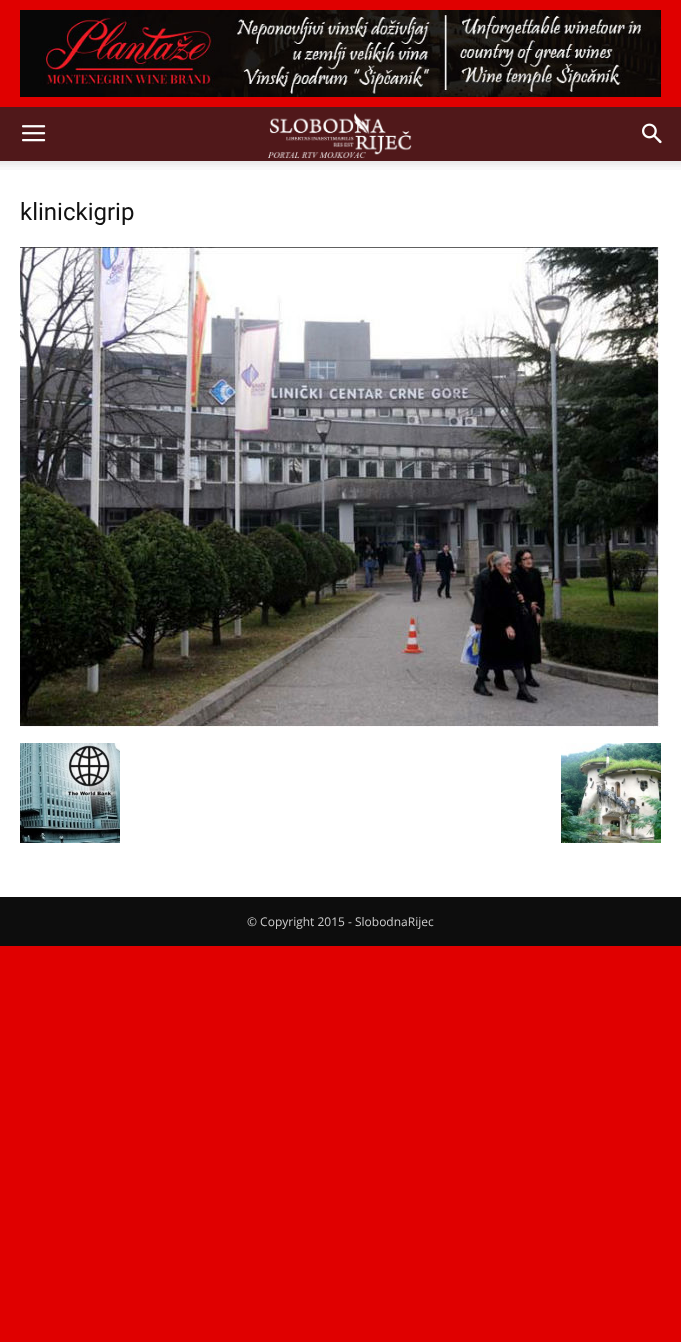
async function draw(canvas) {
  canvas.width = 681
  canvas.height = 1342
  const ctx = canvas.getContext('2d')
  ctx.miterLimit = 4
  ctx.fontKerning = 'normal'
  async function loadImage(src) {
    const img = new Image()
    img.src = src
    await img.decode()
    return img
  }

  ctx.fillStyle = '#e00000'
  ctx.fillRect(0, 0, 681, 1342)
  ctx.drawImage(await loadImage('image0.png'), 20, 10, 641, 87)
  ctx.fillStyle = '#50181a'
  ctx.fillRect(0, 107, 681, 54)
  ctx.drawImage(await loadImage('image1.png'), 22, 125, 24, 17)
  ctx.drawImage(await loadImage('image2.png'), 268, 113, 144, 45)
  ctx.drawImage(await loadImage('image3.png'), 642, 123, 20, 21)
  ctx.fillStyle = '#fff'
  ctx.fillRect(0, 161, 681, 736)
  ctx.drawImage(await loadImage('image4.png'), 0, 161, 681, 9)
  ctx.font = '24px Roboto'
  ctx.fillStyle = '#111'
  ctx.fillText('klinickigrip', 20, 220)
  ctx.drawImage(await loadImage('image5.png'), 20, 247, 640, 480)
  ctx.drawImage(await loadImage('image6.png'), 20, 743, 100, 100)
  ctx.drawImage(await loadImage('image7.png'), 561, 743, 100, 100)
  ctx.fillStyle = '#0d0d0d'
  ctx.fillRect(0, 897, 681, 49)
  ctx.font = '12px Open Sans'
  ctx.fillStyle = '#ccc'
  ctx.fillText('© Copyright 2015 - SlobodnaRijec', 247, 926)
}

draw(document.querySelector('canvas'))
